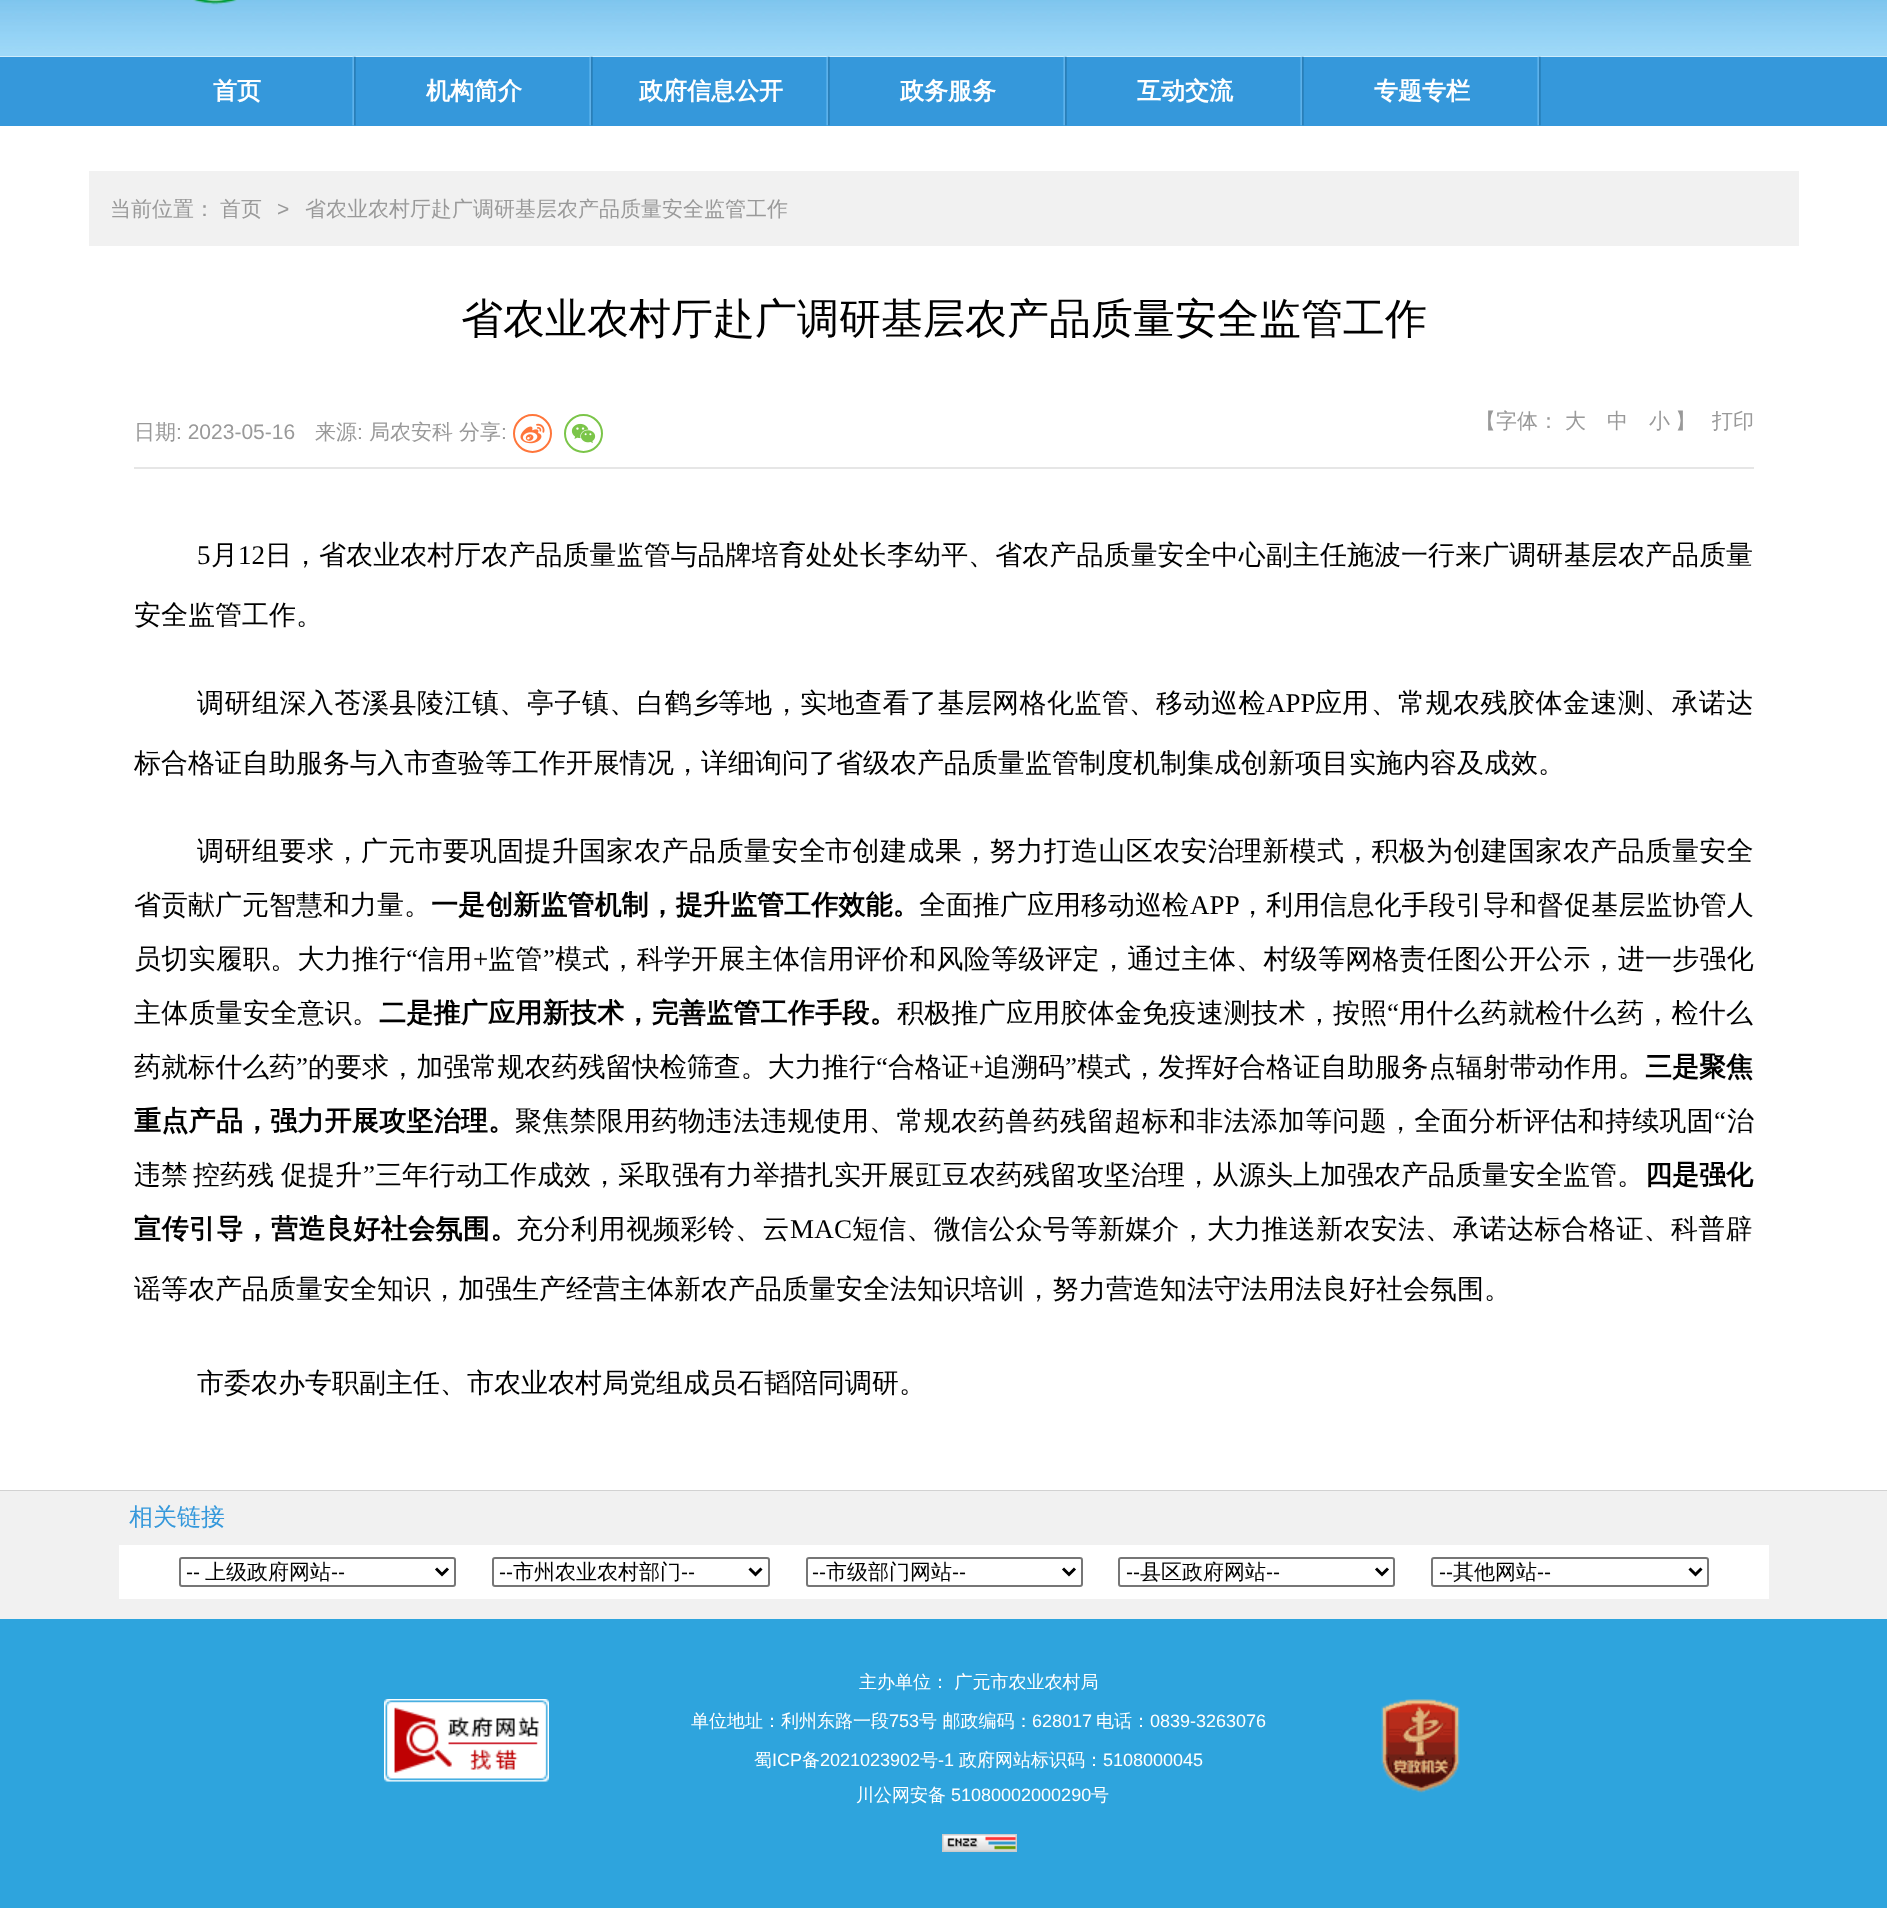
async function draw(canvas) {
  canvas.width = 1887
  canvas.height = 1908
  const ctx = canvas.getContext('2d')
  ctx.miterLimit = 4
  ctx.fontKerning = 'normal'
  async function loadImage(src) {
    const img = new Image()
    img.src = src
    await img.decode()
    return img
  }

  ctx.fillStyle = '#fff'
  ctx.fillRect(0, 0, 1887, 1908)
  ctx.drawImage(await loadImage('image0.png'), 0, 0, 1887, 57)
  ctx.drawImage(await loadImage('image1.png'), 193, 0, 44, 5)
  ctx.fillStyle = '#3598db'
  ctx.fillRect(0, 57, 1887, 69)
  ctx.drawImage(await loadImage('image2.png'), 352, 56, 4, 70)
  ctx.font = 'bold 24px WenQuanYi Zen Hei'
  ctx.fillStyle = '#fff'
  ctx.fillText('首页', 213, 99)
  ctx.drawImage(await loadImage('image2.png'), 589, 56, 4, 70)
  ctx.fillText('机构简介', 426, 99)
  ctx.drawImage(await loadImage('image2.png'), 826, 56, 4, 70)
  ctx.fillText('政府信息公开', 639, 99)
  ctx.drawImage(await loadImage('image2.png'), 1063, 56, 4, 70)
  ctx.fillText('政务服务', 900, 99)
  ctx.drawImage(await loadImage('image2.png'), 1300, 56, 4, 70)
  ctx.fillText('互动交流', 1137, 99)
  ctx.drawImage(await loadImage('image2.png'), 1537, 56, 4, 70)
  ctx.fillText('专题专栏', 1374, 99)
  ctx.fillStyle = '#f1f1f1'
  ctx.fillRect(89, 171, 1710, 75)
  ctx.font = '500 21px WenQuanYi Zen Hei'
  ctx.fillStyle = '#999'
  ctx.fillText('当前位置：', 110, 216)
  ctx.fillText('首页', 220, 216)
  ctx.font = '21px Liberation Sans'
  ctx.fillText('>', 277, 216)
  ctx.font = '500 21px WenQuanYi Zen Hei'
  ctx.fillText('省农业农村厅赴广调研基层农产品质量安全监管工作', 305, 216)
  ctx.font = '500 42px WenQuanYi Zen Hei'
  ctx.fillStyle = '#000'
  ctx.fillText('省农业农村厅赴广调研基层农产品质量安全监管工作', 461, 333)
  ctx.font = '500 21px WenQuanYi Zen Hei'
  ctx.fillStyle = '#999'
  ctx.fillText('日期', 134, 439)
  ctx.font = '21px Liberation Sans'
  ctx.fillText(': 2023-05-16', 176, 439)
  ctx.font = '500 21px WenQuanYi Zen Hei'
  ctx.fillText('来源', 315, 439)
  ctx.font = '21px Liberation Sans'
  ctx.fillText(':', 357, 439)
  ctx.font = '500 21px WenQuanYi Zen Hei'
  ctx.fillText('局农安科', 369, 439)
  ctx.fillText('分享', 459, 439)
  ctx.font = '21px Liberation Sans'
  ctx.fillText(':', 501, 439)
  ctx.beginPath()
  ctx.arc(532.5, 433.5, 18.5, 0, 2 * Math.PI)
  ctx.strokeStyle = '#ff763b'
  ctx.lineWidth = 2
  ctx.stroke()
  ctx.drawImage(await loadImage('image3.png'), 520, 423, 25, 21)
  ctx.beginPath()
  ctx.arc(583.5, 433.5, 18.5, 0, 2 * Math.PI)
  ctx.strokeStyle = '#7bc549'
  ctx.stroke()
  ctx.drawImage(await loadImage('image4.png'), 571, 423, 25, 20)
  ctx.font = '500 21px WenQuanYi Zen Hei'
  ctx.fillText('【字体：', 1475, 428)
  ctx.fillText('大', 1565, 428)
  ctx.fillText('中', 1607, 428)
  ctx.fillText('小', 1649, 428)
  ctx.fillText('】', 1675, 428)
  ctx.fillText('打印', 1712, 428)
  ctx.fillStyle = '#e6e6e6'
  ctx.fillRect(134, 467, 1620, 2)
  ctx.font = '27px Liberation Serif'
  ctx.fillStyle = '#000'
  ctx.fillText('5', 197, 564)
  ctx.font = '500 27px WenQuanYi Zen Hei'
  ctx.fillText('月', 211, 564)
  ctx.font = '27px Liberation Serif'
  ctx.fillText('12', 238, 564)
  ctx.font = '500 27px WenQuanYi Zen Hei'
  ctx.fillText('日', 265, 564)
  ctx.letterSpacing = '0.05px'
  ctx.fillText('，省农业农村厅农产品质量监管与品牌培育处处长李幼平、省农产品质量安全中心副主任施波一行来广调研', 292, 564)
  ctx.letterSpacing = '0px'
  ctx.fillText('基层农产品质量', 1564, 564)
  ctx.fillText('安全监管工作。', 134, 624)
  ctx.letterSpacing = '0.5px'
  ctx.fillText('调研组深入苍溪县', 197, 712)
  ctx.fillText('陵江镇、亭子镇、白鹤乡', 417, 712)
  ctx.letterSpacing = '0px'
  ctx.fillText('等地', 718, 712)
  ctx.fillText('，', 773, 712)
  ctx.letterSpacing = '0.5px'
  ctx.fillText('实地查看了基层', 800, 712)
  ctx.fillText('网格化监管', 992, 712)
  ctx.letterSpacing = '0px'
  ctx.fillText('、', 1129, 712)
  ctx.letterSpacing = '0.5px'
  ctx.fillText('移动巡检', 1156, 712)
  ctx.letterSpacing = '0px'
  ctx.font = '27px Liberation Serif'
  ctx.fillText('APP', 1266, 712)
  ctx.font = '500 27px WenQuanYi Zen Hei'
  ctx.fillText('应用', 1315, 712)
  ctx.fillText('、', 1371, 712)
  ctx.letterSpacing = '0.5px'
  ctx.fillText('常规农残胶体金速测', 1398, 712)
  ctx.fillText('、承诺达', 1644, 712)
  ctx.letterSpacing = '0px'
  ctx.fillText('标合格证自助服务与入市查验等工作开展情况，详细询问了省级农产品质量监管制度机制集成创新项目实施内容及成效。', 134, 772)
  ctx.letterSpacing = '0.5px'
  ctx.fillText('调研组要求', 197, 860)
  ctx.letterSpacing = '0px'
  ctx.fillText('，', 334, 860)
  ctx.letterSpacing = '0.25px'
  ctx.fillText('广元市要巩固提升国家', 361, 860)
  ctx.letterSpacing = '0.5px'
  ctx.fillText('农产品质量安全', 634, 860)
  ctx.fillText('市创建成', 825, 860)
  ctx.letterSpacing = '0px'
  ctx.fillText('果', 935, 860)
  ctx.letterSpacing = '0.3px'
  ctx.fillText('，努力打造山区农安治理新模式，积极为创建国家', 962, 860)
  ctx.letterSpacing = '0.25px'
  ctx.fillText('农产品质量安全', 1563, 860)
  ctx.letterSpacing = '0px'
  ctx.fillText('省贡献广元智慧和力量。', 134, 914)
  ctx.font = 'bold 27px WenQuanYi Zen Hei'
  ctx.fillText('一是', 431, 914)
  ctx.letterSpacing = '0.1px'
  ctx.fillText('创新监管机制，提升监管工作效能。', 486, 914)
  ctx.letterSpacing = '0px'
  ctx.font = '500 27px WenQuanYi Zen Hei'
  ctx.fillText('全面推广应用移动巡检', 919, 914)
  ctx.letterSpacing = '0.1px'
  ctx.font = '27px Liberation Serif'
  ctx.fillText('APP', 1190, 914)
  ctx.font = '500 27px WenQuanYi Zen Hei'
  ctx.fillText('，利用信息化手段引导和督促基层监协管人', 1239, 914)
  ctx.letterSpacing = '0.25px'
  ctx.fillText('员切实履职。大力推行', 134, 968)
  ctx.font = '27px Liberation Serif'
  ctx.fillText('“', 406, 968)
  ctx.font = '500 27px WenQuanYi Zen Hei'
  ctx.fillText('信用', 418, 968)
  ctx.font = '27px Liberation Serif'
  ctx.fillText('+', 473, 968)
  ctx.font = '500 27px WenQuanYi Zen Hei'
  ctx.fillText('监管', 488, 968)
  ctx.font = '27px Liberation Serif'
  ctx.fillText('”', 543, 968)
  ctx.font = '500 27px WenQuanYi Zen Hei'
  ctx.fillText('模式，科学开展主体信用评价和风险等级评定，通过主体、村级等网格责任图公开公示，进一步强化', 555, 968)
  ctx.fillText('主体质量安全意识。', 134, 1022)
  ctx.font = 'bold 27px WenQuanYi Zen Hei'
  ctx.fillText('二是推广应用新技术，完善监管工作手段。', 379, 1022)
  ctx.font = '500 27px WenQuanYi Zen Hei'
  ctx.fillText('积极推广应用胶体金免疫速测技术，按照', 897, 1022)
  ctx.font = '27px Liberation Serif'
  ctx.fillText('“', 1387, 1022)
  ctx.font = '500 27px WenQuanYi Zen Hei'
  ctx.fillText('用什么药就检什么药，检什么', 1399, 1022)
  ctx.letterSpacing = '0.05px'
  ctx.fillText('药就标什么药', 134, 1076)
  ctx.font = '27px Liberation Serif'
  ctx.fillText('”', 296, 1076)
  ctx.font = '500 27px WenQuanYi Zen Hei'
  ctx.fillText('的要求，加强常规农药残留快检筛查。大力推行', 308, 1076)
  ctx.font = '27px Liberation Serif'
  ctx.fillText('“', 876, 1076)
  ctx.font = '500 27px WenQuanYi Zen Hei'
  ctx.fillText('合格证', 888, 1076)
  ctx.letterSpacing = '0px'
  ctx.font = '27px Liberation Serif'
  ctx.fillText('+', 969, 1076)
  ctx.font = '500 27px WenQuanYi Zen Hei'
  ctx.fillText('追溯码', 984, 1076)
  ctx.letterSpacing = '0.05px'
  ctx.font = '27px Liberation Serif'
  ctx.fillText('”', 1065, 1076)
  ctx.font = '500 27px WenQuanYi Zen Hei'
  ctx.fillText('模式，发挥好合格证自助服务点辐射带动作用。', 1077, 1076)
  ctx.letterSpacing = '0px'
  ctx.font = 'bold 27px WenQuanYi Zen Hei'
  ctx.fillText('三是聚焦', 1645, 1076)
  ctx.letterSpacing = '0.3px'
  ctx.fillText('重点产品，', 134, 1130)
  ctx.letterSpacing = '0.25px'
  ctx.fillText('强力开展攻坚治理', 270, 1130)
  ctx.font = '500 27px WenQuanYi Zen Hei'
  ctx.fillText('聚焦禁限用药物违法违规使用、常规农药兽药残留超标和非法添加等问题，全面分析评估和持续巩固', 515, 1130)
  ctx.font = '27px Liberation Serif'
  ctx.fillText('“', 1714, 1130)
  ctx.font = '500 27px WenQuanYi Zen Hei'
  ctx.fillText('治', 1727, 1130)
  ctx.letterSpacing = '0px'
  ctx.font = 'bold 27px WenQuanYi Zen Hei'
  ctx.fillText('。', 488, 1130)
  ctx.font = '500 27px WenQuanYi Zen Hei'
  ctx.fillText('违禁', 134, 1184)
  ctx.wordSpacing = '-1px'
  ctx.fillText('控药残 促提升', 193, 1184)
  ctx.wordSpacing = '0px'
  ctx.font = '27px Liberation Serif'
  ctx.fillText('”', 363, 1184)
  ctx.font = '500 27px WenQuanYi Zen Hei'
  ctx.fillText('三年行动工作成效，采取强有力举措扎实开展豇豆农药残留攻坚治理，从源头上加强农产品质量安全监管。', 375, 1184)
  ctx.font = 'bold 27px WenQuanYi Zen Hei'
  ctx.fillText('四是强化', 1645, 1184)
  ctx.letterSpacing = '0.4px'
  ctx.fillText('宣传引导，营造良好社会氛围。', 134, 1238)
  ctx.letterSpacing = '0.5px'
  ctx.font = '500 27px WenQuanYi Zen Hei'
  ctx.fillText('充分利用', 516, 1238)
  ctx.letterSpacing = '0.3px'
  ctx.fillText('视频彩铃、云', 626, 1238)
  ctx.font = '27px Liberation Serif'
  ctx.fillText('MAC', 790, 1238)
  ctx.font = '500 27px WenQuanYi Zen Hei'
  ctx.fillText('短信、微信公众号等新媒介，大力推送新农安法、承诺达标合格证、科普辟', 852, 1238)
  ctx.letterSpacing = '0px'
  ctx.fillText('谣等农产品质量安全知识，加强生产经营主体新农产品质量安全法知识培训，努力营造知法守法用法良好社会氛围。', 134, 1298)
  ctx.fillText('市委农办专职副主任、市农业农村局党组成员石韬陪同调研。', 197, 1392)
  ctx.fillStyle = '#2ea4dd'
  ctx.fillRect(0, 1619, 1887, 289)
  ctx.fillStyle = '#d2d2d2'
  ctx.fillRect(0, 1490, 1887, 1)
  ctx.fillStyle = '#f1f1f1'
  ctx.fillRect(0, 1491, 1887, 128)
  ctx.font = '500 24px WenQuanYi Zen Hei'
  ctx.fillStyle = '#3598db'
  ctx.fillText('相关链接', 129, 1525)
  ctx.fillStyle = '#fff'
  ctx.fillRect(119, 1545, 1650, 54)
  ctx.beginPath()
  ctx.roundRect(180, 1558, 275, 28, 2)
  ctx.strokeStyle = '#767676'
  ctx.stroke()
  ctx.beginPath()
  ctx.moveTo(436, 1568.5)
  ctx.lineTo(442, 1574.5)
  ctx.lineTo(448, 1568.5)
  ctx.strokeStyle = '#000'
  ctx.lineWidth = 3
  ctx.stroke()
  ctx.font = '21px Liberation Sans'
  ctx.fillStyle = '#000'
  ctx.fillText('--', 186, 1579)
  ctx.font = '500 21px WenQuanYi Zen Hei'
  ctx.fillText('上级政府网站', 205, 1579)
  ctx.font = '21px Liberation Sans'
  ctx.fillText('--', 331, 1579)
  ctx.beginPath()
  ctx.roundRect(493, 1558, 276, 28, 2)
  ctx.strokeStyle = '#767676'
  ctx.lineWidth = 2
  ctx.stroke()
  ctx.beginPath()
  ctx.moveTo(749.5, 1568.5)
  ctx.lineTo(755.5, 1574.5)
  ctx.lineTo(761.5, 1568.5)
  ctx.strokeStyle = '#000'
  ctx.lineWidth = 3
  ctx.stroke()
  ctx.fillText('--', 499, 1579)
  ctx.font = '500 21px WenQuanYi Zen Hei'
  ctx.fillText('市州农业农村部门', 513, 1579)
  ctx.font = '21px Liberation Sans'
  ctx.fillText('--', 681, 1579)
  ctx.beginPath()
  ctx.roundRect(807, 1558, 275, 28, 2)
  ctx.strokeStyle = '#767676'
  ctx.lineWidth = 2
  ctx.stroke()
  ctx.beginPath()
  ctx.moveTo(1063, 1568.5)
  ctx.lineTo(1069, 1574.5)
  ctx.lineTo(1075, 1568.5)
  ctx.strokeStyle = '#000'
  ctx.lineWidth = 3
  ctx.stroke()
  ctx.fillText('--', 812, 1579)
  ctx.font = '500 21px WenQuanYi Zen Hei'
  ctx.fillText('市级部门网站', 826, 1579)
  ctx.font = '21px Liberation Sans'
  ctx.fillText('--', 952, 1579)
  ctx.beginPath()
  ctx.roundRect(1119, 1558, 275, 28, 2)
  ctx.strokeStyle = '#767676'
  ctx.lineWidth = 2
  ctx.stroke()
  ctx.beginPath()
  ctx.moveTo(1376, 1568.5)
  ctx.lineTo(1382, 1574.5)
  ctx.lineTo(1388, 1568.5)
  ctx.strokeStyle = '#000'
  ctx.lineWidth = 3
  ctx.stroke()
  ctx.fillText('--', 1126, 1579)
  ctx.font = '500 21px WenQuanYi Zen Hei'
  ctx.fillText('县区政府网站', 1140, 1579)
  ctx.font = '21px Liberation Sans'
  ctx.fillText('--', 1266, 1579)
  ctx.beginPath()
  ctx.roundRect(1432, 1558, 276, 28, 2)
  ctx.strokeStyle = '#767676'
  ctx.lineWidth = 2
  ctx.stroke()
  ctx.beginPath()
  ctx.moveTo(1689.5, 1568.5)
  ctx.lineTo(1695.5, 1574.5)
  ctx.lineTo(1701.5, 1568.5)
  ctx.strokeStyle = '#000'
  ctx.lineWidth = 3
  ctx.stroke()
  ctx.fillText('--', 1439, 1579)
  ctx.font = '500 21px WenQuanYi Zen Hei'
  ctx.fillText('其他网站', 1453, 1579)
  ctx.font = '21px Liberation Sans'
  ctx.fillText('--', 1537, 1579)
  ctx.drawImage(await loadImage('image5.png'), 384, 1699, 165, 83)
  ctx.font = '500 18px WenQuanYi Zen Hei'
  ctx.fillStyle = '#fff'
  ctx.fillText('主办单位： 广元市农业农村局', 859, 1688)
  ctx.fillText('单位地址：利州东路一段', 691, 1727)
  ctx.font = '18px Liberation Sans'
  ctx.fillText('753', 889, 1727)
  ctx.font = '500 18px WenQuanYi Zen Hei'
  ctx.fillText('号 邮政编码：', 919, 1727)
  ctx.font = '18px Liberation Sans'
  ctx.fillText('628017', 1032, 1727)
  ctx.font = '500 18px WenQuanYi Zen Hei'
  ctx.fillText('电话：', 1096, 1727)
  ctx.font = '18px Liberation Sans'
  ctx.fillText('0839-3263076', 1150, 1727)
  ctx.font = '500 18px WenQuanYi Zen Hei'
  ctx.fillText('蜀', 754, 1766)
  ctx.font = '18px Liberation Sans'
  ctx.fillText('ICP', 772, 1766)
  ctx.font = '500 18px WenQuanYi Zen Hei'
  ctx.fillText('备', 802, 1766)
  ctx.font = '18px Liberation Sans'
  ctx.fillText('2021023902', 820, 1766)
  ctx.font = '500 18px WenQuanYi Zen Hei'
  ctx.fillText('号', 920, 1766)
  ctx.font = '18px Liberation Sans'
  ctx.fillText('-1', 938, 1766)
  ctx.font = '500 18px WenQuanYi Zen Hei'
  ctx.fillText('政府网站标识码：', 959, 1766)
  ctx.font = '18px Liberation Sans'
  ctx.fillText('5108000045', 1103, 1766)
  ctx.font = '500 18px WenQuanYi Zen Hei'
  ctx.fillText('川公网安备', 856, 1801)
  ctx.font = '18px Liberation Sans'
  ctx.fillText('51080002000290', 951, 1801)
  ctx.font = '500 18px WenQuanYi Zen Hei'
  ctx.fillText('号', 1091, 1801)
  ctx.drawImage(await loadImage('image6.png'), 942, 1834, 75, 18)
  ctx.drawImage(await loadImage('image7.png'), 1381, 1699, 79, 94)
}

draw(document.querySelector('canvas'))
